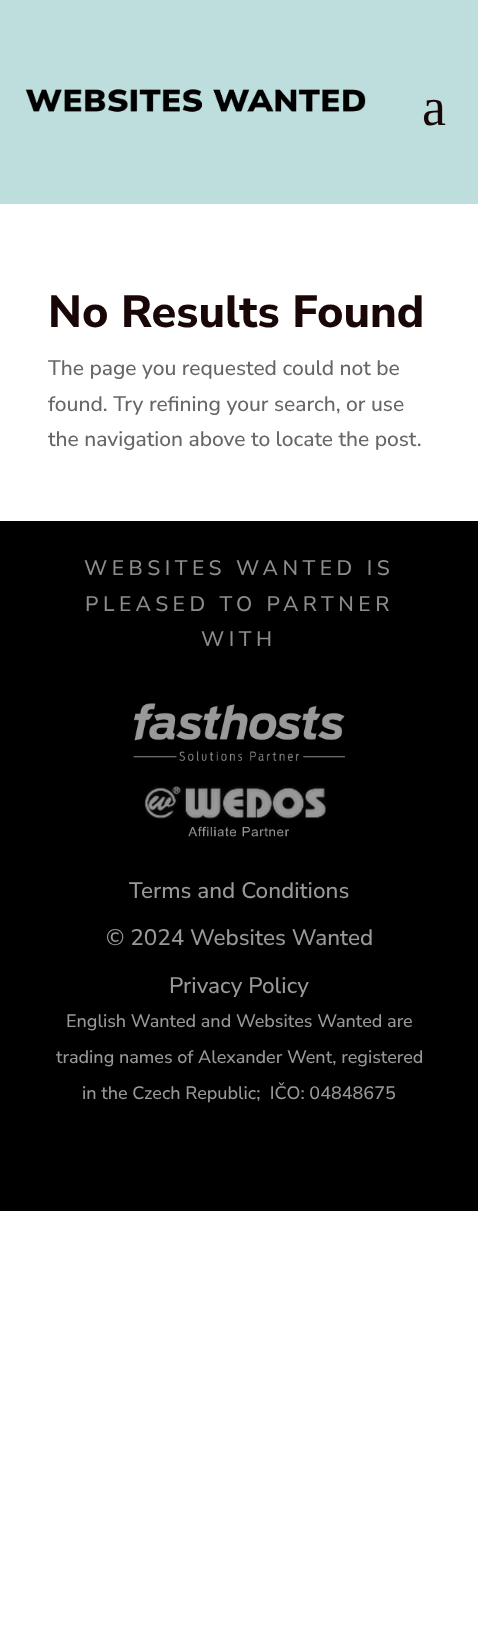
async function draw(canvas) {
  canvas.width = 478
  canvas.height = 1638
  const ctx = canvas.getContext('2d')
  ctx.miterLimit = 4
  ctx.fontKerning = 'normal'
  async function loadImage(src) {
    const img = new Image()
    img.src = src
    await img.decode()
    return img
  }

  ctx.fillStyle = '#fff'
  ctx.fillRect(0, 0, 478, 1638)
  ctx.fillStyle = '#bedddd'
  ctx.fillRect(0, 0, 478, 204)
  ctx.drawImage(await loadImage('image0.png'), 25, 89, 341, 23)
  ctx.font = '54px Liberation Serif'
  ctx.fillStyle = '#190707'
  ctx.fillText('a', 422, 125)
  ctx.font = '800 45px Nunito Sans'
  ctx.fillText('No Results Found', 48, 327)
  ctx.font = '500 21px Nunito Sans'
  ctx.fillStyle = '#666'
  ctx.fillText('The page you requested could not be', 48, 375)
  ctx.fillText('found. Try refining your search, or use', 48, 411)
  ctx.fillText('the navigation above to locate the post.', 48, 446)
  ctx.fillStyle = '#000'
  ctx.fillRect(0, 521, 478, 690)
  ctx.letterSpacing = '4.5px'
  ctx.fillStyle = '#8c8c8c'
  ctx.fillText('WEBSITES WANTED IS', 84, 575)
  ctx.fillText('PLEASED TO PARTNER', 85, 611)
  ctx.fillText('WITH', 201, 646)
  ctx.drawImage(await loadImage('image1.png'), 133, 703, 212, 58)
  ctx.drawImage(await loadImage('image2.png'), 144, 786, 182, 51)
  ctx.letterSpacing = '0px'
  ctx.font = '500 22.5px Nunito Sans'
  ctx.fillStyle = '#999'
  ctx.fillText('Terms and Conditions', 129, 898)
  ctx.fillText('© 2024 Websites Wanted', 106, 945)
  ctx.fillText('Privacy Policy', 169, 993)
  ctx.font = '500 18px Nunito Sans'
  ctx.fillText('English Wanted and Websites Wanted are', 66, 1027)
  ctx.fillText('trading names of Alexander Went, registered', 56, 1063)
  ctx.fillText('in the Czech Republic;  IČO: 04848675', 82, 1099)
}

draw(document.querySelector('canvas'))
